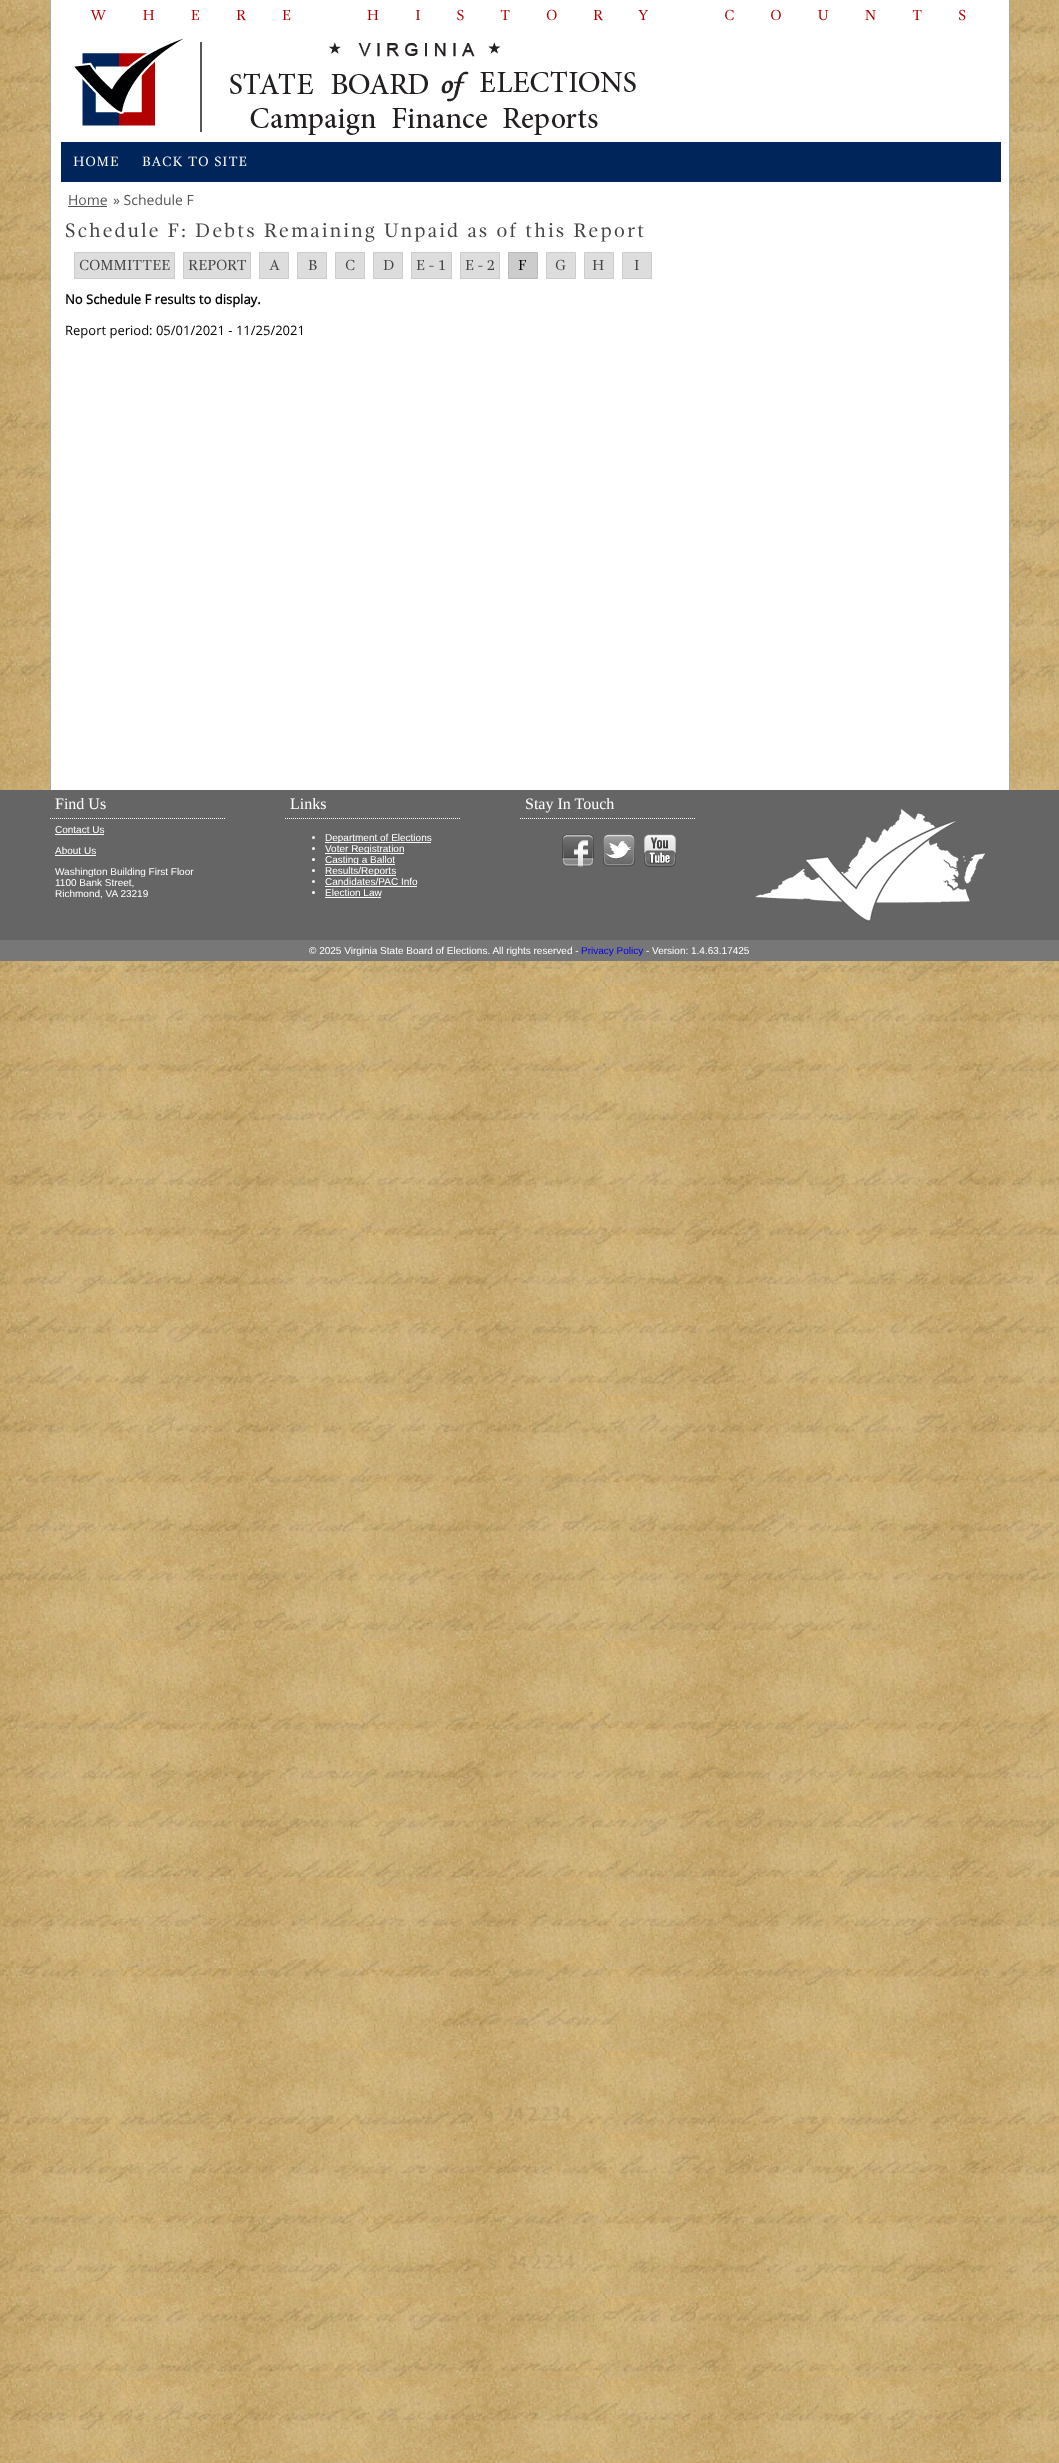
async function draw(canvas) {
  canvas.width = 1059
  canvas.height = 2463
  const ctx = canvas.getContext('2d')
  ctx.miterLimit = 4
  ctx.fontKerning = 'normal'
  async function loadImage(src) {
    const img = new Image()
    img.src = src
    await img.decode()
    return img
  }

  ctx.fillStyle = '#fff'
  ctx.fillRect(0, 0, 1059, 2463)
  ctx.drawImage(await loadImage('image0.png'), 0, 0, 1059, 2463)
  ctx.drawImage(await loadImage('image1.png'), 0, 16, 1059, 2414)
  ctx.fillRect(51, 0, 958, 790)
  ctx.fillStyle = '#aaa'
  ctx.fillRect(1009, 0, 1, 790)
  ctx.fillRect(50, 0, 1, 790)
  ctx.letterSpacing = '36px'
  ctx.font = '15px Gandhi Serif'
  ctx.fillStyle = '#b20000'
  ctx.fillText('WHERE HISTORY COUNTS', 90, 20)
  ctx.drawImage(await loadImage('image2.png'), 74, 38, 562, 97)
  ctx.fillStyle = '#00255a'
  ctx.fillRect(61, 142, 940, 40)
  ctx.letterSpacing = '1px'
  ctx.font = '14px Gandhi Serif'
  ctx.fillStyle = '#fff'
  ctx.fillText('HOME', 73, 166)
  ctx.fillText('BACK TO SITE', 142, 166)
  ctx.letterSpacing = '0px'
  ctx.font = '14px Open Sans'
  ctx.fillStyle = '#555'
  ctx.fillText('Home', 68, 205)
  ctx.fillRect(68, 206, 39, 1)
  ctx.fillText('» Schedule F', 113, 205)
  ctx.letterSpacing = '2px'
  ctx.font = '20px Gandhi Serif'
  ctx.fillStyle = '#444'
  ctx.fillText('Schedule F: Debts Remaining Unpaid as of this Report', 65, 237)
  ctx.fillStyle = '#ddd'
  ctx.beginPath()
  ctx.rect(74.5, 252.5, 100, 26)
  ctx.fill()
  ctx.strokeStyle = '#ccc'
  ctx.stroke()
  ctx.letterSpacing = '0px'
  ctx.font = '15px Gandhi Serif'
  ctx.fillStyle = '#444'
  ctx.fillText('COMMITTEE', 79, 270)
  ctx.fillStyle = '#ddd'
  ctx.beginPath()
  ctx.rect(183.5, 252.5, 67, 26)
  ctx.fill()
  ctx.stroke()
  ctx.fillStyle = '#444'
  ctx.fillText('REPORT', 188, 270)
  ctx.fillStyle = '#ddd'
  ctx.beginPath()
  ctx.rect(259.5, 252.5, 29, 26)
  ctx.fill()
  ctx.stroke()
  ctx.fillStyle = '#444'
  ctx.fillText('A', 269, 270)
  ctx.fillStyle = '#ddd'
  ctx.beginPath()
  ctx.rect(297.5, 252.5, 29, 26)
  ctx.fill()
  ctx.stroke()
  ctx.fillStyle = '#444'
  ctx.fillText('B', 308, 270)
  ctx.fillStyle = '#ddd'
  ctx.beginPath()
  ctx.rect(335.5, 252.5, 29, 26)
  ctx.fill()
  ctx.stroke()
  ctx.fillStyle = '#444'
  ctx.fillText('C', 345, 270)
  ctx.fillStyle = '#ddd'
  ctx.beginPath()
  ctx.rect(373.5, 252.5, 29, 26)
  ctx.fill()
  ctx.stroke()
  ctx.fillStyle = '#444'
  ctx.fillText('D', 383, 270)
  ctx.fillStyle = '#ddd'
  ctx.beginPath()
  ctx.rect(411.5, 252.5, 40, 26)
  ctx.fill()
  ctx.stroke()
  ctx.fillStyle = '#444'
  ctx.fillText('E - 1', 416, 270)
  ctx.fillStyle = '#ddd'
  ctx.beginPath()
  ctx.rect(460.5, 252.5, 39, 26)
  ctx.fill()
  ctx.stroke()
  ctx.fillStyle = '#444'
  ctx.fillText('E - 2', 465, 270)
  ctx.fillStyle = '#ccc'
  ctx.beginPath()
  ctx.rect(508.5, 252.5, 29, 26)
  ctx.fill()
  ctx.strokeStyle = '#bbb'
  ctx.stroke()
  ctx.fillStyle = '#000'
  ctx.fillText('F', 518, 270)
  ctx.fillStyle = '#ddd'
  ctx.beginPath()
  ctx.rect(546.5, 252.5, 29, 26)
  ctx.fill()
  ctx.strokeStyle = '#ccc'
  ctx.stroke()
  ctx.fillStyle = '#444'
  ctx.fillText('G', 555, 270)
  ctx.fillStyle = '#ddd'
  ctx.beginPath()
  ctx.rect(584.5, 252.5, 29, 26)
  ctx.fill()
  ctx.stroke()
  ctx.fillStyle = '#444'
  ctx.fillText('H', 592, 270)
  ctx.fillStyle = '#ddd'
  ctx.beginPath()
  ctx.rect(622.5, 252.5, 29, 26)
  ctx.fill()
  ctx.stroke()
  ctx.fillStyle = '#444'
  ctx.fillText('I', 634, 270)
  ctx.font = 'bold 13px Open Sans'
  ctx.fillStyle = '#000'
  ctx.fillText('No Schedule F results to display.', 65, 304)
  ctx.font = '13px Open Sans'
  ctx.fillText('Report period: 05/01/2021 - 11/25/2021', 65, 335)
  ctx.fillStyle = '#656565'
  ctx.fillRect(0, 790, 1059, 150)
  ctx.beginPath()
  ctx.moveTo(50, 818.5)
  ctx.lineTo(225, 818.5)
  ctx.strokeStyle = '#fff'
  ctx.setLineDash([1, 1])
  ctx.stroke()
  ctx.font = '16px Liberation Serif'
  ctx.fillStyle = '#fff'
  ctx.fillText('Find Us', 55, 809)
  ctx.font = '10px Liberation Sans'
  ctx.fillText('Contact Us', 55, 833)
  ctx.fillRect(55, 834, 49, 1)
  ctx.fillText('About Us', 55, 854)
  ctx.fillRect(55, 855, 41, 1)
  ctx.fillText('Washington Building First Floor', 55, 875)
  ctx.fillText('1100 Bank Street,', 55, 886)
  ctx.fillText('Richmond, VA 23219', 55, 897)
  ctx.beginPath()
  ctx.moveTo(285, 818.5)
  ctx.lineTo(460, 818.5)
  ctx.stroke()
  ctx.font = '16px Liberation Serif'
  ctx.fillText('Links', 290, 809)
  ctx.beginPath()
  ctx.arc(313.5, 837.5, 1.5, 0, 2 * Math.PI)
  ctx.fill()
  ctx.fillRect(325, 842, 106, 1)
  ctx.font = '10px Liberation Sans'
  ctx.fillText('Department of Elections', 325, 841)
  ctx.beginPath()
  ctx.arc(313.5, 848.5, 1.5, 0, 2 * Math.PI)
  ctx.fill()
  ctx.fillRect(325, 853, 79, 1)
  ctx.fillText('Voter Registration', 325, 852)
  ctx.beginPath()
  ctx.arc(313.5, 859.5, 1.5, 0, 2 * Math.PI)
  ctx.fill()
  ctx.fillRect(325, 864, 70, 1)
  ctx.fillText('Casting a Ballot', 325, 863)
  ctx.beginPath()
  ctx.arc(313.5, 870.5, 1.5, 0, 2 * Math.PI)
  ctx.fill()
  ctx.fillRect(325, 875, 71, 1)
  ctx.fillText('Results/Reports', 325, 874)
  ctx.beginPath()
  ctx.arc(313.5, 881.5, 1.5, 0, 2 * Math.PI)
  ctx.fill()
  ctx.fillText('Candidates/PAC Info', 325, 885)
  ctx.fillRect(325, 886, 92, 1)
  ctx.beginPath()
  ctx.arc(313.5, 892.5, 1.5, 0, 2 * Math.PI)
  ctx.fill()
  ctx.fillText('Election Law', 325, 896)
  ctx.fillRect(325, 897, 56, 1)
  ctx.beginPath()
  ctx.moveTo(520, 818.5)
  ctx.lineTo(695, 818.5)
  ctx.stroke()
  ctx.font = '16px Liberation Serif'
  ctx.fillText('Stay In Touch', 525, 809)
  ctx.drawImage(await loadImage('image3.png'), 562, 834, 32, 33)
  ctx.drawImage(await loadImage('image4.png'), 603, 834, 32, 33)
  ctx.drawImage(await loadImage('image5.png'), 644, 834, 32, 33)
  ctx.drawImage(await loadImage('image6.png'), 755, 809, 230, 113)
  ctx.fillStyle = '#777'
  ctx.fillRect(0, 940, 1059, 21)
  ctx.font = '10px Liberation Sans'
  ctx.fillStyle = '#fff'
  ctx.fillText('© 2025 Virginia State Board of Elections. All rights reserved -', 309, 954)
  ctx.fillStyle = '#00e'
  ctx.fillText('Privacy Policy', 581, 954)
  ctx.fillStyle = '#fff'
  ctx.fillText('- Version: 1.4.63.17425', 646, 954)
}

draw(document.querySelector('canvas'))
